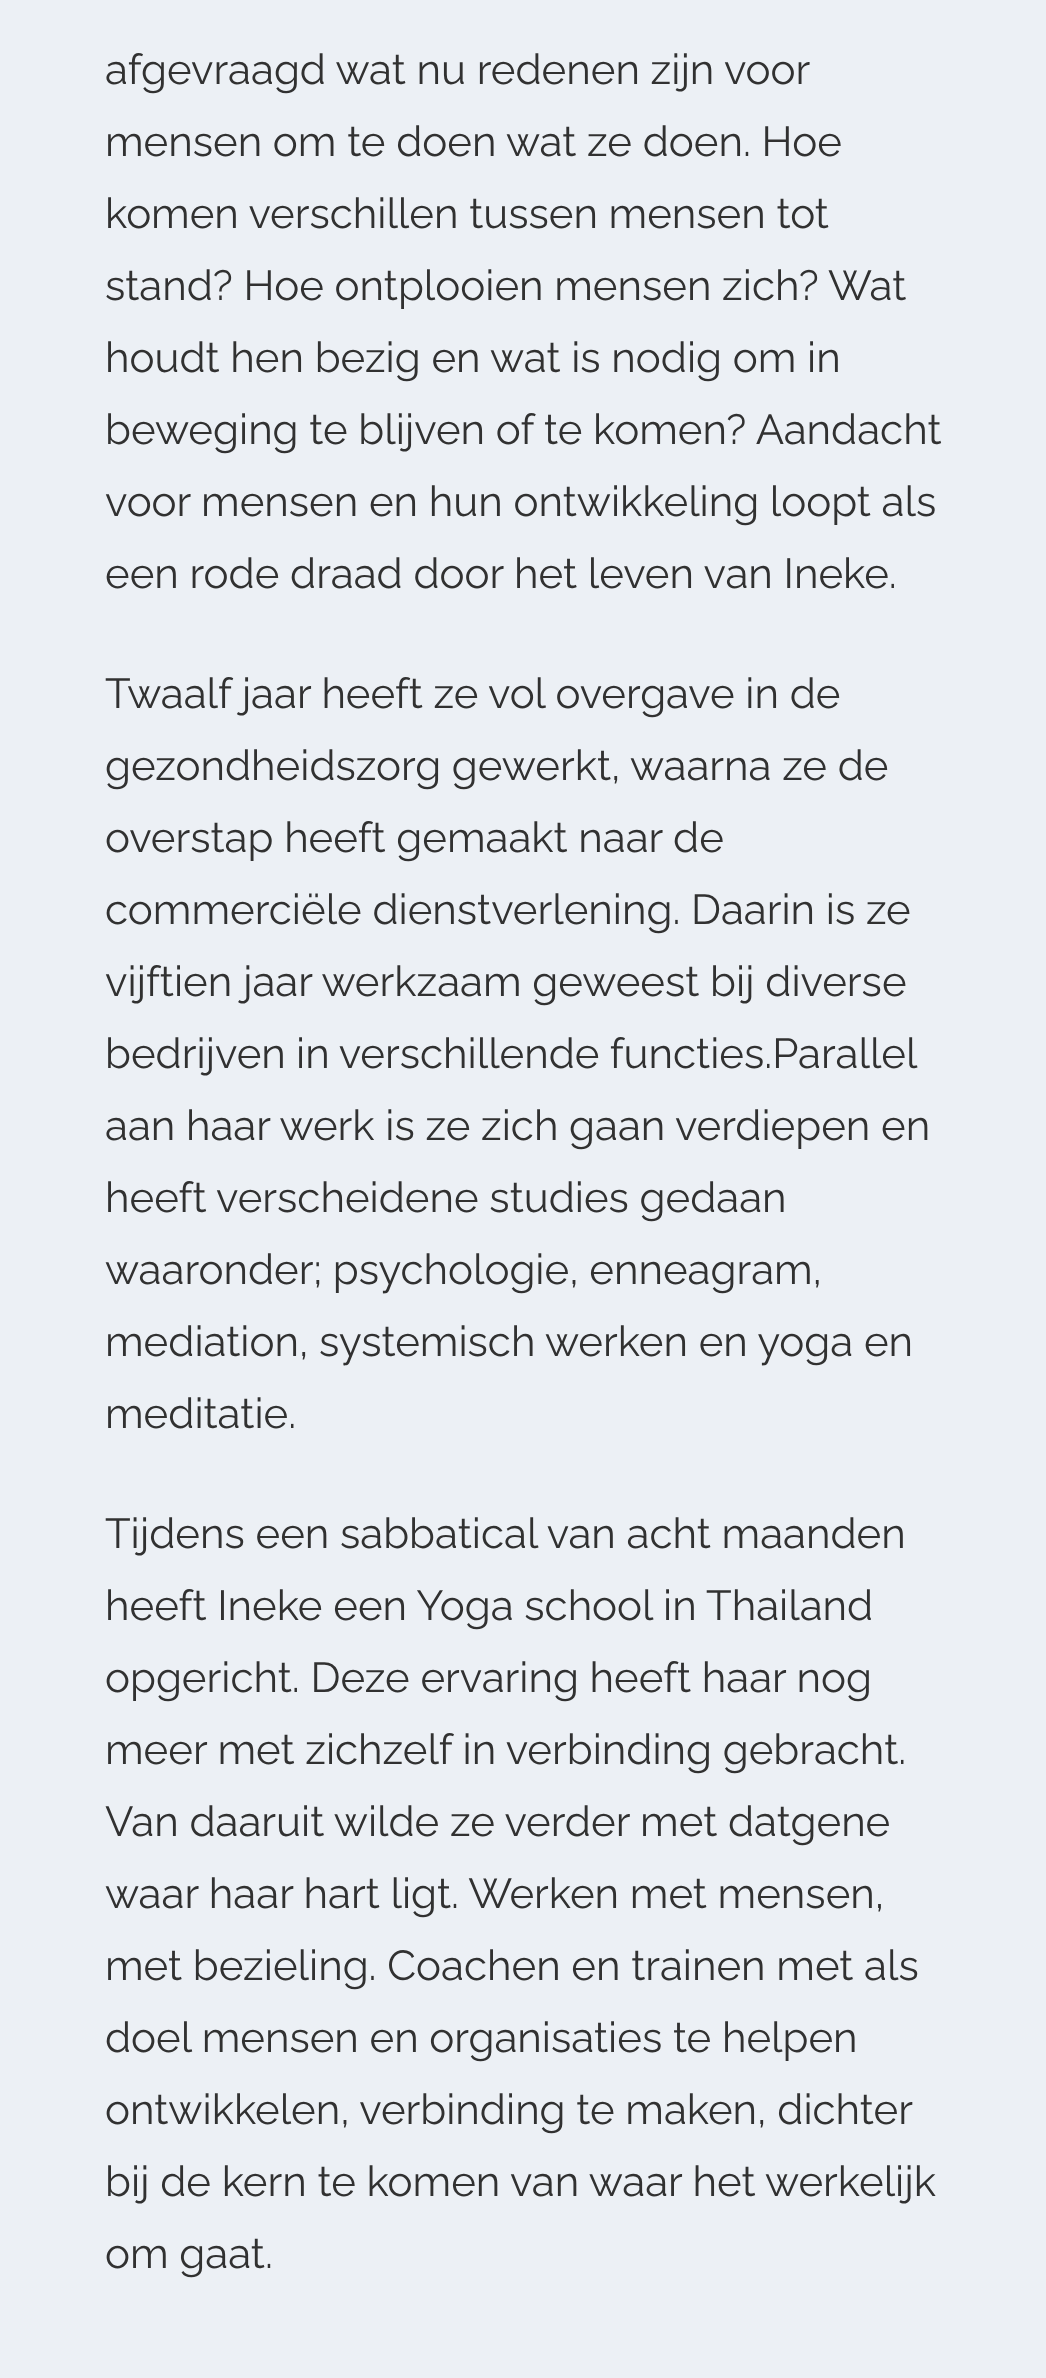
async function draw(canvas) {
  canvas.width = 1046
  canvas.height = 2378
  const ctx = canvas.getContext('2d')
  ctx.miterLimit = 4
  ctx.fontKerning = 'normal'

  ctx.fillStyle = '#ecf0f5'
  ctx.fillRect(0, 0, 1046, 2378)
  ctx.font = '42px Raleway'
  ctx.fillStyle = '#313131'
  ctx.fillText('afgevraagd wat nu redenen zijn voor', 105, 84)
  ctx.fillText('mensen om te doen wat ze doen. Hoe', 105, 156)
  ctx.fillText('komen verschillen tussen mensen tot', 105, 228)
  ctx.fillText('stand? Hoe ontplooien mensen zich? Wat', 105, 300)
  ctx.fillText('houdt hen bezig en wat is nodig om in', 105, 372)
  ctx.fillText('beweging te blijven of te komen? Aandacht', 105, 444)
  ctx.fillText('voor mensen en hun ontwikkeling loopt als', 105, 516)
  ctx.fillText('een rode draad door het leven van Ineke.', 105, 588)
  ctx.fillText('Twaalf jaar heeft ze vol overgave in de', 105, 708)
  ctx.fillText('gezondheidszorg gewerkt, waarna ze de', 105, 780)
  ctx.fillText('overstap heeft gemaakt naar de', 105, 852)
  ctx.fillText('commerciële dienstverlening. Daarin is ze', 105, 924)
  ctx.fillText('vijftien jaar werkzaam geweest bij diverse', 105, 996)
  ctx.wordSpacing = '-0.5px'
  ctx.fillText('bedrijven in verschillende functies.Parallel', 105, 1068)
  ctx.wordSpacing = '0px'
  ctx.fillText('aan haar werk is ze zich gaan verdiepen en', 105, 1140)
  ctx.fillText('heeft verscheidene studies gedaan', 105, 1212)
  ctx.fillText('waaronder; psychologie, enneagram,', 105, 1284)
  ctx.fillText('mediation, systemisch werken en yoga en', 105, 1356)
  ctx.fillText('meditatie.', 105, 1428)
  ctx.fillText('Tijdens een sabbatical van acht maanden', 105, 1548)
  ctx.fillText('heeft Ineke een Yoga school in Thailand', 105, 1620)
  ctx.fillText('opgericht. Deze ervaring heeft haar nog', 105, 1692)
  ctx.fillText('meer met zichzelf in verbinding gebracht.', 105, 1764)
  ctx.fillText('Van daaruit wilde ze verder met datgene', 105, 1836)
  ctx.fillText('waar haar hart ligt. Werken met mensen,', 105, 1908)
  ctx.fillText('met bezieling. Coachen en trainen met als', 105, 1980)
  ctx.fillText('doel mensen en organisaties te helpen', 105, 2052)
  ctx.fillText('ontwikkelen, verbinding te maken, dichter', 105, 2124)
  ctx.fillText('bij de kern te komen van waar het werkelijk', 105, 2196)
  ctx.fillText('om gaat.', 105, 2268)
}

draw(document.querySelector('canvas'))
